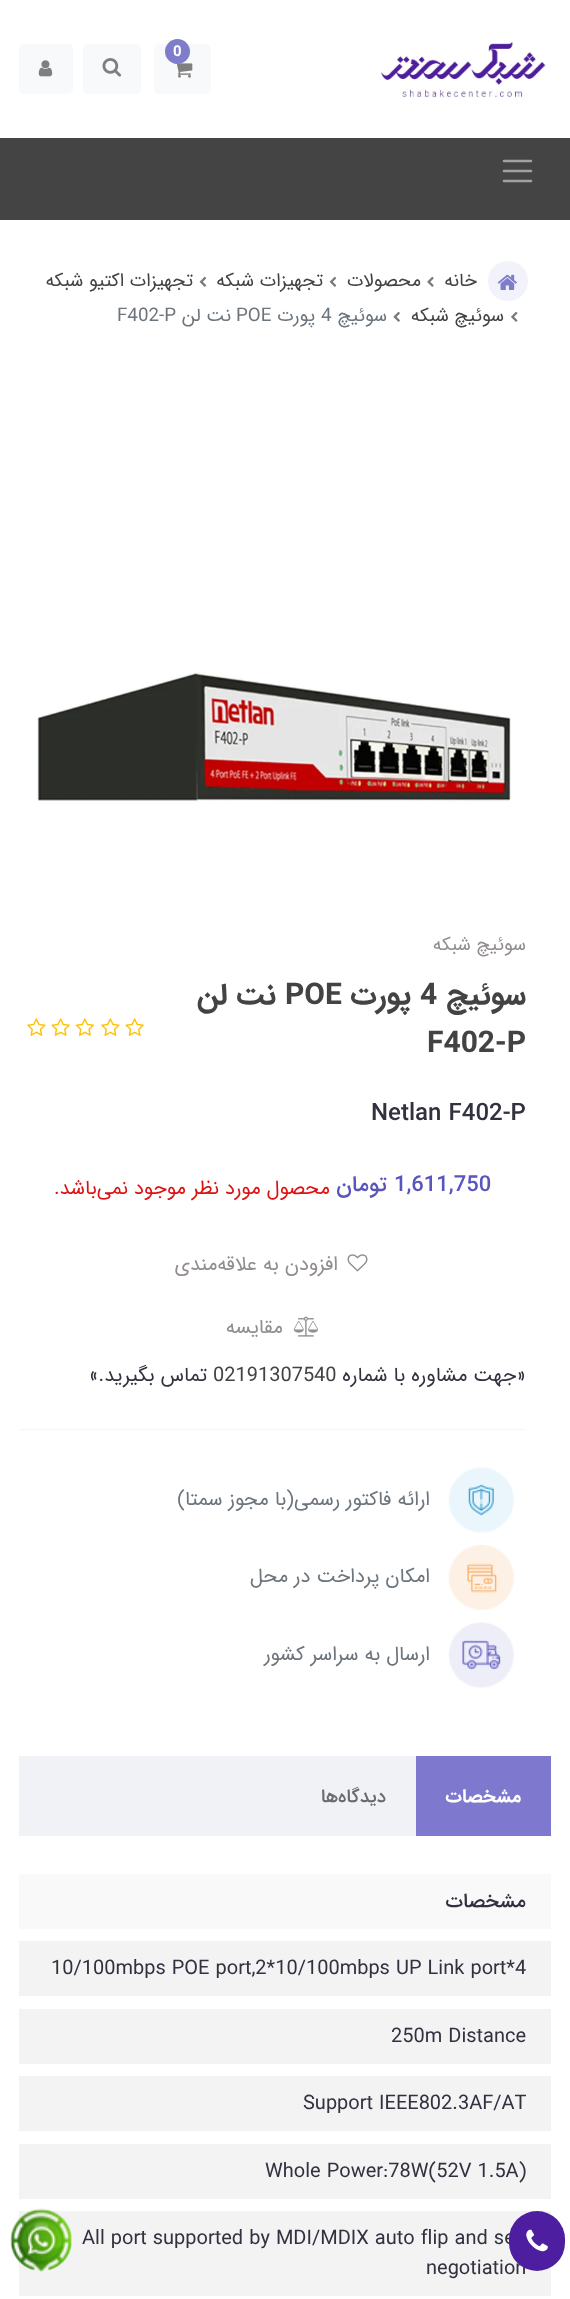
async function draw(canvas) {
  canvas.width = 570
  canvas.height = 2299
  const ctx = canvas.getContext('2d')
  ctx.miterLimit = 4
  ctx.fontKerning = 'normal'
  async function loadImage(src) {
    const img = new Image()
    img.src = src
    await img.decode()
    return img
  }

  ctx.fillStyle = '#fff'
  ctx.fillRect(0, 0, 570, 2299)
  ctx.drawImage(await loadImage('image0.png'), 380, 41, 166, 57)
  ctx.fillStyle = '#f8f9fa'
  ctx.beginPath()
  ctx.roundRect(154, 44, 57, 50, 5)
  ctx.fill()
  ctx.drawImage(await loadImage('image1.png'), 174, 63, 19, 15)
  ctx.fillStyle = '#7f7ccc'
  ctx.beginPath()
  ctx.arc(177.5, 51.5, 12.5, 0, 2 * Math.PI)
  ctx.fill()
  ctx.font = 'bold 15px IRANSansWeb'
  ctx.fillStyle = '#fff'
  ctx.fillText('0', 173, 56)
  ctx.fillStyle = '#f8f9fa'
  ctx.beginPath()
  ctx.roundRect(83, 44, 58, 50, 5)
  ctx.fill()
  ctx.drawImage(await loadImage('image2.png'), 102, 58, 19, 19)
  ctx.beginPath()
  ctx.roundRect(19, 44, 54, 50, 5)
  ctx.fill()
  ctx.drawImage(await loadImage('image3.png'), 38, 60, 15, 17)
  ctx.fillStyle = '#444'
  ctx.fillRect(0, 138, 570, 82)
  ctx.beginPath()
  ctx.moveTo(504, 161)
  ctx.lineTo(531, 161)
  ctx.moveTo(504, 171)
  ctx.lineTo(531, 171)
  ctx.moveTo(504, 181)
  ctx.lineTo(531, 181)
  ctx.strokeStyle = '#a2a2a2'
  ctx.lineWidth = 2.5
  ctx.lineCap = 'round'
  ctx.stroke()
  ctx.fillStyle = '#f3f3f3'
  ctx.fillRect(19, 2211, 532, 85)
  ctx.font = '20px IRANSansWeb'
  ctx.fillStyle = '#313140'
  ctx.fillText('All port supported by MDI/MDIX auto flip and se', 82, 2244)
  ctx.fillText('negotiation', 426, 2274)
  ctx.fillStyle = '#4d1e9f'
  ctx.beginPath()
  ctx.roundRect(509, 2211, 56, 60, 28)
  ctx.fill()
  ctx.drawImage(await loadImage('image4.png'), 526, 2229, 22, 23)
  ctx.fillStyle = '#f2f2fa'
  ctx.beginPath()
  ctx.arc(508, 281, 20, 0, 2 * Math.PI)
  ctx.fill()
  ctx.drawImage(await loadImage('image5.png'), 497, 274, 20, 16)
  ctx.direction = 'rtl'
  ctx.font = '18.75px IRANSansWeb'
  ctx.fillStyle = '#434343'
  ctx.fillText('خانه', 477, 286)
  ctx.drawImage(await loadImage('image6.png'), 427, 276, 7, 11)
  ctx.fillText('محصولات', 421, 286)
  ctx.drawImage(await loadImage('image7.png'), 329, 276, 8, 11)
  ctx.fillText('تجهیزات شبکه', 323, 286)
  ctx.drawImage(await loadImage('image7.png'), 199, 276, 8, 11)
  ctx.fillText('تجهیزات اکتیو شبکه', 193, 286)
  ctx.drawImage(await loadImage('image8.png'), 511, 311, 7, 11)
  ctx.fillText('سوئیچ شبکه', 504, 321)
  ctx.drawImage(await loadImage('image9.png'), 393, 311, 7, 11)
  ctx.fillStyle = '#6c757d'
  ctx.fillText('سوئیچ', 387, 321)
  ctx.direction = 'ltr'
  ctx.fillText('4', 321, 321)
  ctx.direction = 'rtl'
  ctx.fillText('پورت', 315, 321)
  ctx.direction = 'ltr'
  ctx.fillText('POE', 236, 321)
  ctx.direction = 'rtl'
  ctx.fillText('نت لن', 231, 321)
  ctx.direction = 'ltr'
  ctx.fillText('F402-P', 117, 321)
  ctx.drawImage(await loadImage('image10.png'), 37, 672, 474, 131)
  ctx.direction = 'rtl'
  ctx.fillStyle = '#928d8d'
  ctx.fillText('سوئیچ شبکه', 526, 950)
  ctx.font = 'bold 30px IRANSansWeb'
  ctx.fillStyle = '#434343'
  ctx.fillText('سوئیچ', 526, 1004)
  ctx.direction = 'ltr'
  ctx.fillText('4', 420, 1004)
  ctx.direction = 'rtl'
  ctx.fillText('پورت', 411, 1004)
  ctx.direction = 'ltr'
  ctx.fillText('POE', 285, 1004)
  ctx.direction = 'rtl'
  ctx.fillText('نت لن', 276, 1004)
  ctx.direction = 'ltr'
  ctx.fillText('F402-P', 427, 1052)
  ctx.drawImage(await loadImage('image11.png'), 125, 1018, 19, 18)
  ctx.drawImage(await loadImage('image12.png'), 101, 1018, 19, 18)
  ctx.drawImage(await loadImage('image13.png'), 75, 1018, 20, 18)
  ctx.drawImage(await loadImage('image14.png'), 51, 1018, 19, 18)
  ctx.drawImage(await loadImage('image15.png'), 27, 1018, 19, 18)
  ctx.font = '500 24px IRANSansWeb'
  ctx.fillStyle = '#313140'
  ctx.fillText('Netlan F402-P', 371, 1120)
  ctx.font = '500 22px IRANSansWeb'
  ctx.fillStyle = '#5855bd'
  ctx.fillText('1,611,750', 394, 1191)
  ctx.direction = 'rtl'
  ctx.fillText('تومان', 387, 1191)
  ctx.font = '20px IRANSansWeb'
  ctx.fillStyle = '#de1111'
  ctx.fillText('محصول مورد نظر موجود نمی‌باشد.', 330, 1194)
  ctx.drawImage(await loadImage('image16.png'), 347, 1254, 21, 18)
  ctx.fillStyle = '#928d8d'
  ctx.fillText('افزودن به علاقه‌مندی', 338, 1270)
  ctx.drawImage(await loadImage('image17.png'), 293, 1316, 25, 21)
  ctx.fillText('مقایسه', 283, 1333)
  ctx.fillStyle = '#313140'
  ctx.fillText('«جهت مشاوره با شماره', 526, 1381)
  ctx.direction = 'ltr'
  ctx.fillStyle = '#434343'
  ctx.fillText('02191307540', 213, 1381)
  ctx.direction = 'rtl'
  ctx.fillStyle = '#313140'
  ctx.fillText('تماس بگیرید.»', 207, 1381)
  ctx.fillStyle = '#f6f6f6'
  ctx.fillRect(19, 1429, 507, 1)
  ctx.drawImage(await loadImage('image18.png'), 448, 1467, 66, 66)
  ctx.fillStyle = '#6c757d'
  ctx.fillText('ارائه فاکتور رسمی(با مجوز سمتا)', 430, 1505)
  ctx.drawImage(await loadImage('image19.png'), 448, 1545, 66, 65)
  ctx.fillText('امکان پرداخت در محل', 430, 1582)
  ctx.drawImage(await loadImage('image20.png'), 449, 1622, 65, 66)
  ctx.fillText('ارسال به سراسر کشور', 430, 1660)
  ctx.fillStyle = '#f1f2f5'
  ctx.fillRect(19, 1756, 397, 80)
  ctx.fillStyle = '#7e79ce'
  ctx.fillRect(416, 1756, 135, 80)
  ctx.font = 'bold 18.75px IRANSansWeb'
  ctx.fillStyle = '#fff'
  ctx.fillText('مشخصات', 521, 1802)
  ctx.font = '500 18.75px IRANSansWeb'
  ctx.fillStyle = '#6b6b6d'
  ctx.fillText('دیدگاه‌ها', 386, 1802)
  ctx.fillStyle = '#f9f9f9'
  ctx.fillRect(19, 1874, 532, 55)
  ctx.font = '500 20px IRANSansWeb'
  ctx.fillStyle = '#313140'
  ctx.fillText('مشخصات', 526, 1907)
  ctx.fillStyle = '#f3f3f3'
  ctx.fillRect(19, 1941, 532, 55)
  ctx.direction = 'ltr'
  ctx.font = '20px IRANSansWeb'
  ctx.fillStyle = '#313140'
  ctx.fillText('10/100mbps POE port,2*10/100mbps UP Link port*4', 51, 1974)
  ctx.fillStyle = '#f3f3f3'
  ctx.fillRect(19, 2009, 532, 55)
  ctx.fillStyle = '#313140'
  ctx.fillText('250m Distance', 391, 2042)
  ctx.fillStyle = '#f3f3f3'
  ctx.fillRect(19, 2076, 532, 55)
  ctx.fillStyle = '#313140'
  ctx.fillText('Support IEEE802.3AF/AT', 303, 2109)
  ctx.fillStyle = '#f3f3f3'
  ctx.fillRect(19, 2144, 532, 55)
  ctx.fillStyle = '#313140'
  ctx.fillText('Whole Power:78W(52V 1.5A)', 265, 2177)
  ctx.drawImage(await loadImage('image21.png'), 10, 2208, 63, 64)
}

draw(document.querySelector('canvas'))
